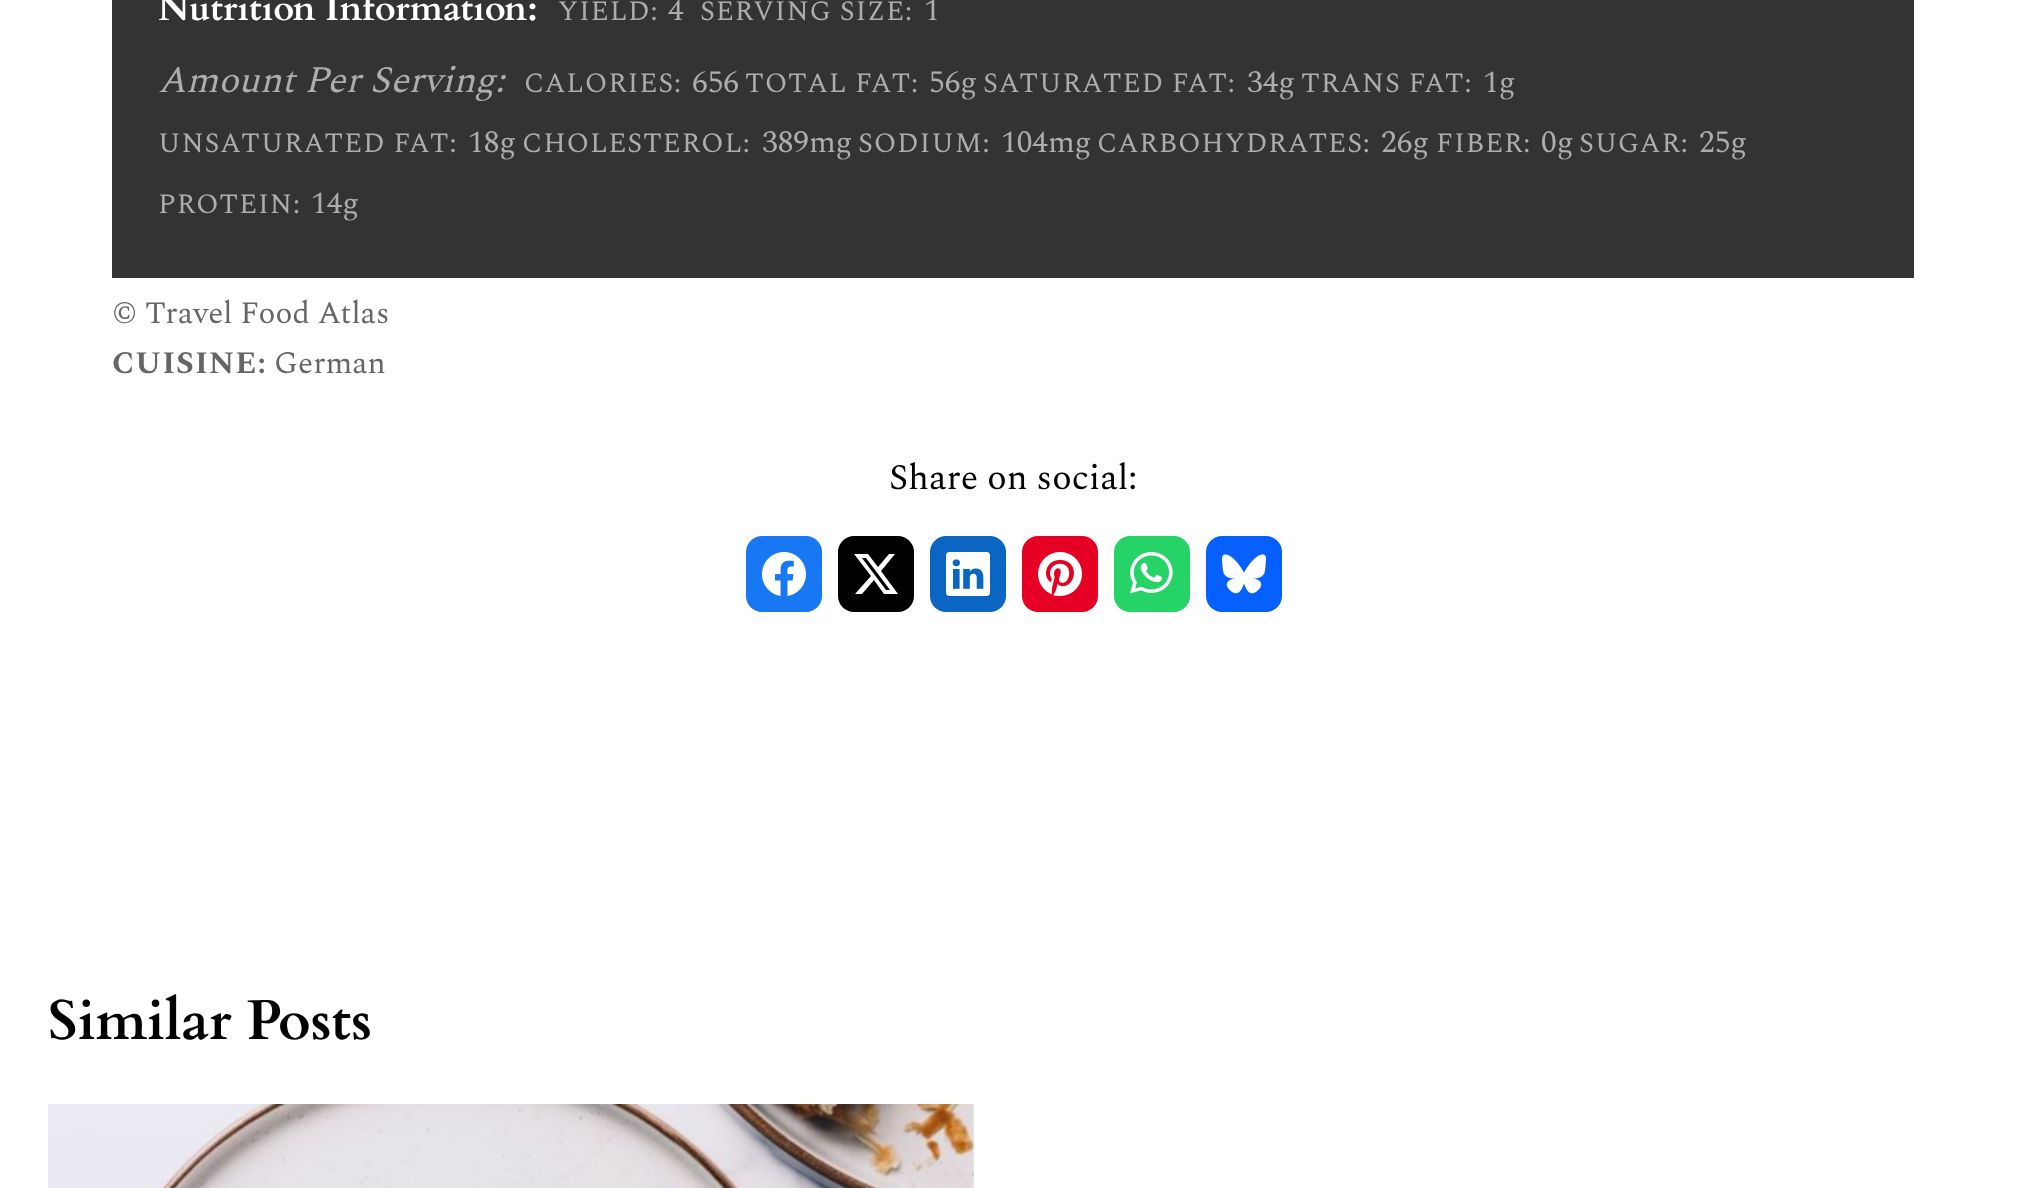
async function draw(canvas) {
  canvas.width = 2025
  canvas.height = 1188
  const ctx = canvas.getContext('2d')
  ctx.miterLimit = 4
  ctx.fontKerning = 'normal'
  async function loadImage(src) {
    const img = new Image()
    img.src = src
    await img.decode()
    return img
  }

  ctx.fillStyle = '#fff'
  ctx.fillRect(0, 0, 2025, 1188)
  ctx.strokeStyle = '#333'
  ctx.lineWidth = 6
  ctx.strokeRect(115, -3, 1796, 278)
  ctx.fillStyle = '#333'
  ctx.fillRect(118, 0, 1790, 272)
  ctx.font = 'bold 36px Cardo'
  ctx.fillStyle = '#fff'
  ctx.fillText('Nutrition Information:', 158, 20)
  ctx.letterSpacing = '0.8px'
  ctx.font = '28px Spectral'
  ctx.fillStyle = '#adadad'
  ctx.fillText('YIELD:', 558, 20)
  ctx.letterSpacing = '0px'
  ctx.font = '31.25px Spectral'
  ctx.fillText('4', 668, 20)
  ctx.letterSpacing = '0.8px'
  ctx.font = '28px Spectral'
  ctx.fillText('SERVING SIZE:', 700, 20)
  ctx.letterSpacing = '0px'
  ctx.font = '31.25px Spectral'
  ctx.fillText('1', 924, 20)
  ctx.font = 'italic 37.5px Spectral'
  ctx.fillText('Amount Per Serving:', 158, 92)
  ctx.letterSpacing = '0.8px'
  ctx.font = '28px Spectral'
  ctx.fillText('CALORIES:', 524, 92)
  ctx.letterSpacing = '0px'
  ctx.font = '31.25px Spectral'
  ctx.fillText('656', 692, 92)
  ctx.letterSpacing = '0.8px'
  ctx.font = '28px Spectral'
  ctx.fillText('TOTAL FAT:', 745, 92)
  ctx.letterSpacing = '0px'
  ctx.font = '31.25px Spectral'
  ctx.fillText('56g', 929, 92)
  ctx.letterSpacing = '0.8px'
  ctx.font = '28px Spectral'
  ctx.fillText('SATURATED FAT:', 983, 92)
  ctx.letterSpacing = '0px'
  ctx.font = '31.25px Spectral'
  ctx.fillText('34g', 1247, 92)
  ctx.letterSpacing = '0.8px'
  ctx.font = '28px Spectral'
  ctx.fillText('TRANS FAT:', 1301, 92)
  ctx.letterSpacing = '0px'
  ctx.font = '31.25px Spectral'
  ctx.fillText('1g', 1483, 92)
  ctx.letterSpacing = '0.8px'
  ctx.font = '28px Spectral'
  ctx.fillText('UNSATURATED FAT:', 158, 152)
  ctx.letterSpacing = '0px'
  ctx.font = '31.25px Spectral'
  ctx.fillText('18g', 468, 152)
  ctx.letterSpacing = '0.8px'
  ctx.font = '28px Spectral'
  ctx.fillText('CHOLESTEROL:', 522, 152)
  ctx.letterSpacing = '0px'
  ctx.font = '31.25px Spectral'
  ctx.fillText('389mg', 762, 152)
  ctx.letterSpacing = '0.8px'
  ctx.font = '28px Spectral'
  ctx.fillText('SODIUM:', 858, 152)
  ctx.letterSpacing = '0px'
  ctx.font = '31.25px Spectral'
  ctx.fillText('104mg', 1001, 152)
  ctx.letterSpacing = '0.8px'
  ctx.font = '28px Spectral'
  ctx.fillText('CARBOHYDRATES:', 1097, 152)
  ctx.letterSpacing = '0px'
  ctx.font = '31.25px Spectral'
  ctx.fillText('26g', 1381, 152)
  ctx.letterSpacing = '0.8px'
  ctx.font = '28px Spectral'
  ctx.fillText('FIBER:', 1436, 152)
  ctx.letterSpacing = '0px'
  ctx.font = '31.25px Spectral'
  ctx.fillText('0g', 1541, 152)
  ctx.letterSpacing = '0.8px'
  ctx.font = '28px Spectral'
  ctx.fillText('SUGAR:', 1579, 152)
  ctx.letterSpacing = '0px'
  ctx.font = '31.25px Spectral'
  ctx.fillText('25g', 1699, 152)
  ctx.letterSpacing = '0.8px'
  ctx.font = '28px Spectral'
  ctx.fillText('PROTEIN:', 158, 213)
  ctx.letterSpacing = '0px'
  ctx.font = '31.25px Spectral'
  ctx.fillText('14g', 311, 213)
  ctx.fillStyle = '#666'
  ctx.fillText('© Travel Food Atlas', 112, 323)
  ctx.letterSpacing = '1px'
  ctx.font = 'bold 31.25px Spectral'
  ctx.fillText('CUISINE:', 112, 373)
  ctx.letterSpacing = '0px'
  ctx.font = '31.25px Spectral'
  ctx.fillText('German', 274, 373)
  ctx.font = '36px Spectral'
  ctx.fillStyle = '#000'
  ctx.fillText('Share on social:', 889, 489)
  ctx.fillStyle = '#1877f2'
  ctx.beginPath()
  ctx.roundRect(746, 536, 76, 76, 16)
  ctx.fill()
  ctx.drawImage(await loadImage('image0.png'), 762, 552, 44, 44)
  ctx.fillStyle = '#000'
  ctx.beginPath()
  ctx.roundRect(838, 536, 76, 76, 16)
  ctx.fill()
  ctx.fillStyle = '#fff'
  ctx.beginPath()
  ctx.moveTo(889, 554)
  ctx.lineTo(895, 554)
  ctx.lineTo(881, 571)
  ctx.lineTo(898, 594)
  ctx.lineTo(884, 594)
  ctx.lineTo(874, 580)
  ctx.lineTo(862, 594)
  ctx.lineTo(855, 594)
  ctx.lineTo(871, 576)
  ctx.lineTo(854, 554)
  ctx.lineTo(868, 554)
  ctx.lineTo(878, 567)
  ctx.closePath()
  ctx.moveTo(886, 590)
  ctx.lineTo(890, 590)
  ctx.lineTo(866, 558)
  ctx.lineTo(862, 558)
  ctx.closePath()
  ctx.fill()
  ctx.fillStyle = '#0a66c2'
  ctx.beginPath()
  ctx.roundRect(930, 536, 76, 76, 16)
  ctx.fill()
  ctx.drawImage(await loadImage('image1.png'), 946, 552, 44, 44)
  ctx.fillStyle = '#e60023'
  ctx.beginPath()
  ctx.roundRect(1022, 536, 76, 76, 16)
  ctx.fill()
  ctx.drawImage(await loadImage('image2.png'), 1038, 552, 44, 44)
  ctx.fillStyle = '#25d366'
  ctx.beginPath()
  ctx.roundRect(1114, 536, 76, 76, 16)
  ctx.fill()
  ctx.drawImage(await loadImage('image3.png'), 1130, 552, 43, 42)
  ctx.fillStyle = '#0560ff'
  ctx.beginPath()
  ctx.roundRect(1206, 536, 76, 76, 16)
  ctx.fill()
  ctx.drawImage(await loadImage('image4.png'), 1222, 554, 44, 40)
  ctx.font = 'bold 56px Cardo'
  ctx.fillStyle = '#000'
  ctx.fillText('Similar Posts', 48, 1039)
  ctx.drawImage(await loadImage('image5.png'), 48, 1104, 926, 84)
}

draw(document.querySelector('canvas'))
